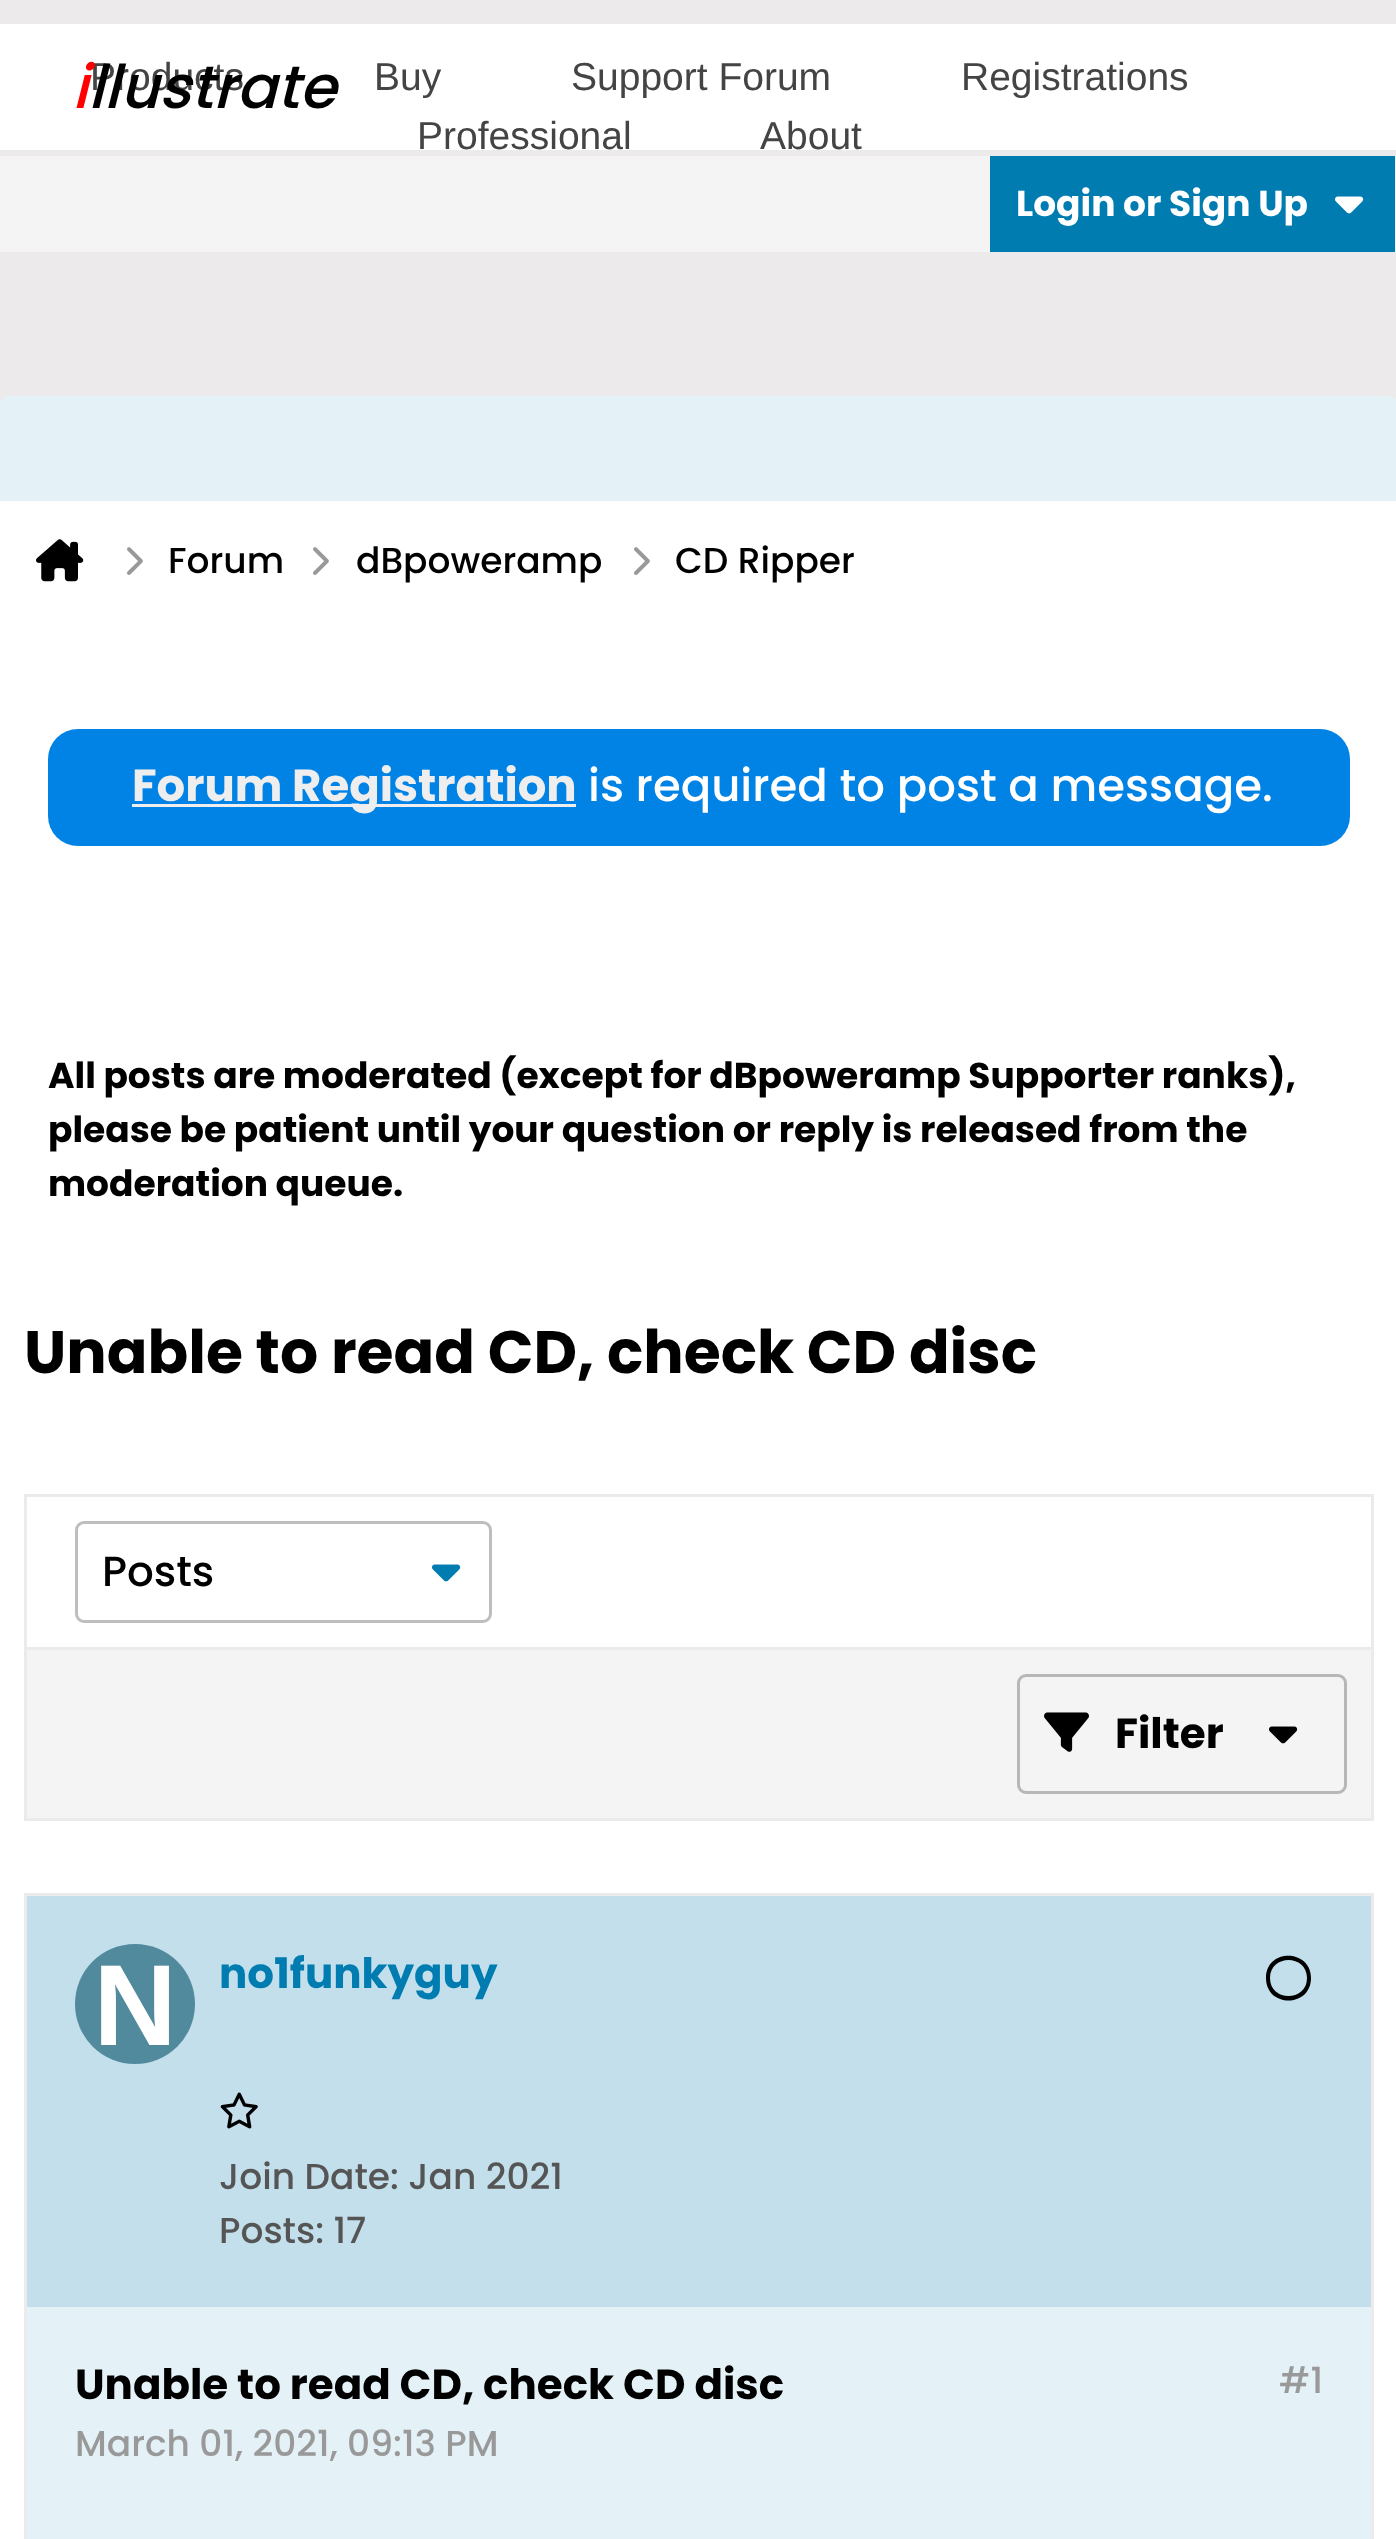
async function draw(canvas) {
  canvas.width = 1396
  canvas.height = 2539
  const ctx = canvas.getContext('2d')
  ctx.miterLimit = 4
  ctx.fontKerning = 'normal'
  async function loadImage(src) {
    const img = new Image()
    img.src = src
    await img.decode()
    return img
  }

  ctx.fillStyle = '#eceaea'
  ctx.fillRect(0, 0, 1396, 2539)
  ctx.fillStyle = '#fff'
  ctx.fillRect(0, 24, 1396, 126)
  ctx.font = '39px Liberation Sans'
  ctx.fillStyle = '#444'
  ctx.fillText('Products', 90, 90)
  ctx.font = 'italic 500 60px Poppins'
  ctx.fillStyle = '#f00'
  ctx.fillText('i', 72, 108)
  ctx.fillStyle = '#000'
  ctx.fillText('llustrate', 88, 108)
  ctx.font = '39px Liberation Sans'
  ctx.fillStyle = '#444'
  ctx.fillText('Buy', 374, 90)
  ctx.fillText('Support Forum', 571, 90)
  ctx.fillText('Registrations', 961, 90)
  ctx.fillText('Professional', 417, 149)
  ctx.fillText('About', 760, 149)
  ctx.fillStyle = '#f5f4f4'
  ctx.fillRect(0, 156, 1396, 96)
  ctx.fillStyle = '#007cb0'
  ctx.fillRect(990, 156, 405, 96)
  ctx.font = 'bold 36px Poppins'
  ctx.fillStyle = '#fff'
  ctx.fillText('Login or Sign Up', 1016, 216)
  ctx.drawImage(await loadImage('image0.png'), 1335, 196, 29, 18)
  ctx.fillStyle = '#e4f1f6'
  ctx.beginPath()
  ctx.moveTo(9, 396)
  ctx.lineTo(1389, 396)
  ctx.bezierCurveTo(1394, 396, 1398, 400, 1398, 405)
  ctx.lineTo(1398, 501)
  ctx.lineTo(0, 501)
  ctx.lineTo(0, 405)
  ctx.bezierCurveTo(0, 400, 4, 396, 9, 396)
  ctx.closePath()
  ctx.fill()
  ctx.fillStyle = '#fff'
  ctx.fillRect(0, 501, 1396, 2038)
  ctx.drawImage(await loadImage('image1.png'), 36, 539, 48, 43)
  ctx.drawImage(await loadImage('image2.png'), 127, 547, 16, 28)
  ctx.font = '500 36px Poppins'
  ctx.fillStyle = '#000'
  ctx.fillText('Forum', 168, 573)
  ctx.drawImage(await loadImage('image2.png'), 313, 547, 16, 28)
  ctx.fillText('dBpoweramp', 356, 573)
  ctx.drawImage(await loadImage('image2.png'), 634, 547, 16, 28)
  ctx.fillText('CD Ripper', 675, 573)
  ctx.fillStyle = '#0182e5'
  ctx.beginPath()
  ctx.roundRect(48, 729, 1302, 117, 30)
  ctx.fill()
  ctx.fillStyle = '#eee'
  ctx.fillRect(132, 804, 444, 3)
  ctx.font = 'bold 45px Poppins'
  ctx.fillText('Forum Registration', 132, 801)
  ctx.font = '500 45px Poppins'
  ctx.fillStyle = '#fff'
  ctx.fillText('is required to post a message.', 588, 801)
  ctx.font = 'bold 36px Poppins'
  ctx.fillStyle = '#000'
  ctx.fillText('All posts are moderated (except for dBpoweramp Supporter ranks),', 48, 1088)
  ctx.fillText('please be patient until your question or reply is released from the', 48, 1142)
  ctx.fillText('moderation queue.', 48, 1196)
  ctx.font = 'bold 60px Poppins'
  ctx.fillText('Unable to read CD, check CD disc', 24, 1373)
  ctx.fillStyle = '#eceaea'
  ctx.fillRect(24, 1494, 1350, 3)
  ctx.fillRect(1371, 1494, 3, 153)
  ctx.fillRect(24, 1494, 3, 153)
  ctx.beginPath()
  ctx.roundRect(76.5, 1522.5, 414, 99, 7.5)
  ctx.strokeStyle = '#bcbec0'
  ctx.lineWidth = 3
  ctx.stroke()
  ctx.font = '500 42px Poppins'
  ctx.fillStyle = '#000'
  ctx.fillText('Posts', 102, 1586)
  ctx.drawImage(await loadImage('image3.png'), 432, 1564, 29, 18)
  ctx.fillStyle = '#f5f4f4'
  ctx.beginPath()
  ctx.rect(25.5, 1648.5, 1347, 171)
  ctx.fill()
  ctx.strokeStyle = '#eceaea'
  ctx.stroke()
  ctx.beginPath()
  ctx.roundRect(1018.5, 1675.5, 327, 117, 7.5)
  ctx.strokeStyle = '#b7b7b7'
  ctx.stroke()
  ctx.drawImage(await loadImage('image4.png'), 1044, 1712, 45, 40)
  ctx.font = 'bold 42px Poppins'
  ctx.fillStyle = '#000'
  ctx.fillText('Filter', 1115, 1748)
  ctx.drawImage(await loadImage('image5.png'), 1269, 1726, 29, 18)
  ctx.fillStyle = '#c2dfeb'
  ctx.fillRect(27, 1896, 1344, 411)
  ctx.strokeStyle = '#eceaea'
  ctx.strokeRect(25.5, 1894.5, 1347, 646)
  ctx.drawImage(await loadImage('image6.png'), 75, 1944, 120, 120)
  ctx.fillStyle = '#007cb0'
  ctx.fillText('no1funkyguy', 219, 1988)
  ctx.drawImage(await loadImage('image7.png'), 220, 2092, 38, 37)
  ctx.font = '500 36px Poppins'
  ctx.fillStyle = '#555'
  ctx.fillText('Join Date: Jan 2021', 219, 2189)
  ctx.fillText('Posts: 17', 219, 2243)
  ctx.fillStyle = '#000'
  ctx.beginPath()
  ctx.moveTo(1307, 1978)
  ctx.bezierCurveTo(1307, 1954, 1270, 1954, 1270, 1978)
  ctx.bezierCurveTo(1270, 2002, 1307, 2002, 1307, 1978)
  ctx.closePath()
  ctx.moveTo(1266, 1978)
  ctx.bezierCurveTo(1266, 1948, 1311, 1949, 1311, 1978)
  ctx.bezierCurveTo(1311, 2008, 1266, 2008, 1266, 1978)
  ctx.closePath()
  ctx.fill()
  ctx.fillStyle = '#e4f1f6'
  ctx.fillRect(27, 2307, 1344, 232)
  ctx.font = 'bold 42px Poppins'
  ctx.fillStyle = '#000'
  ctx.fillText('Unable to read CD, check CD disc', 75, 2399)
  ctx.font = '500 36px Poppins'
  ctx.fillStyle = '#999'
  ctx.fillText('March 01, 2021, 09:13 PM', 75, 2456)
  ctx.fillText('#1', 1279, 2393)
}

draw(document.querySelector('canvas'))
